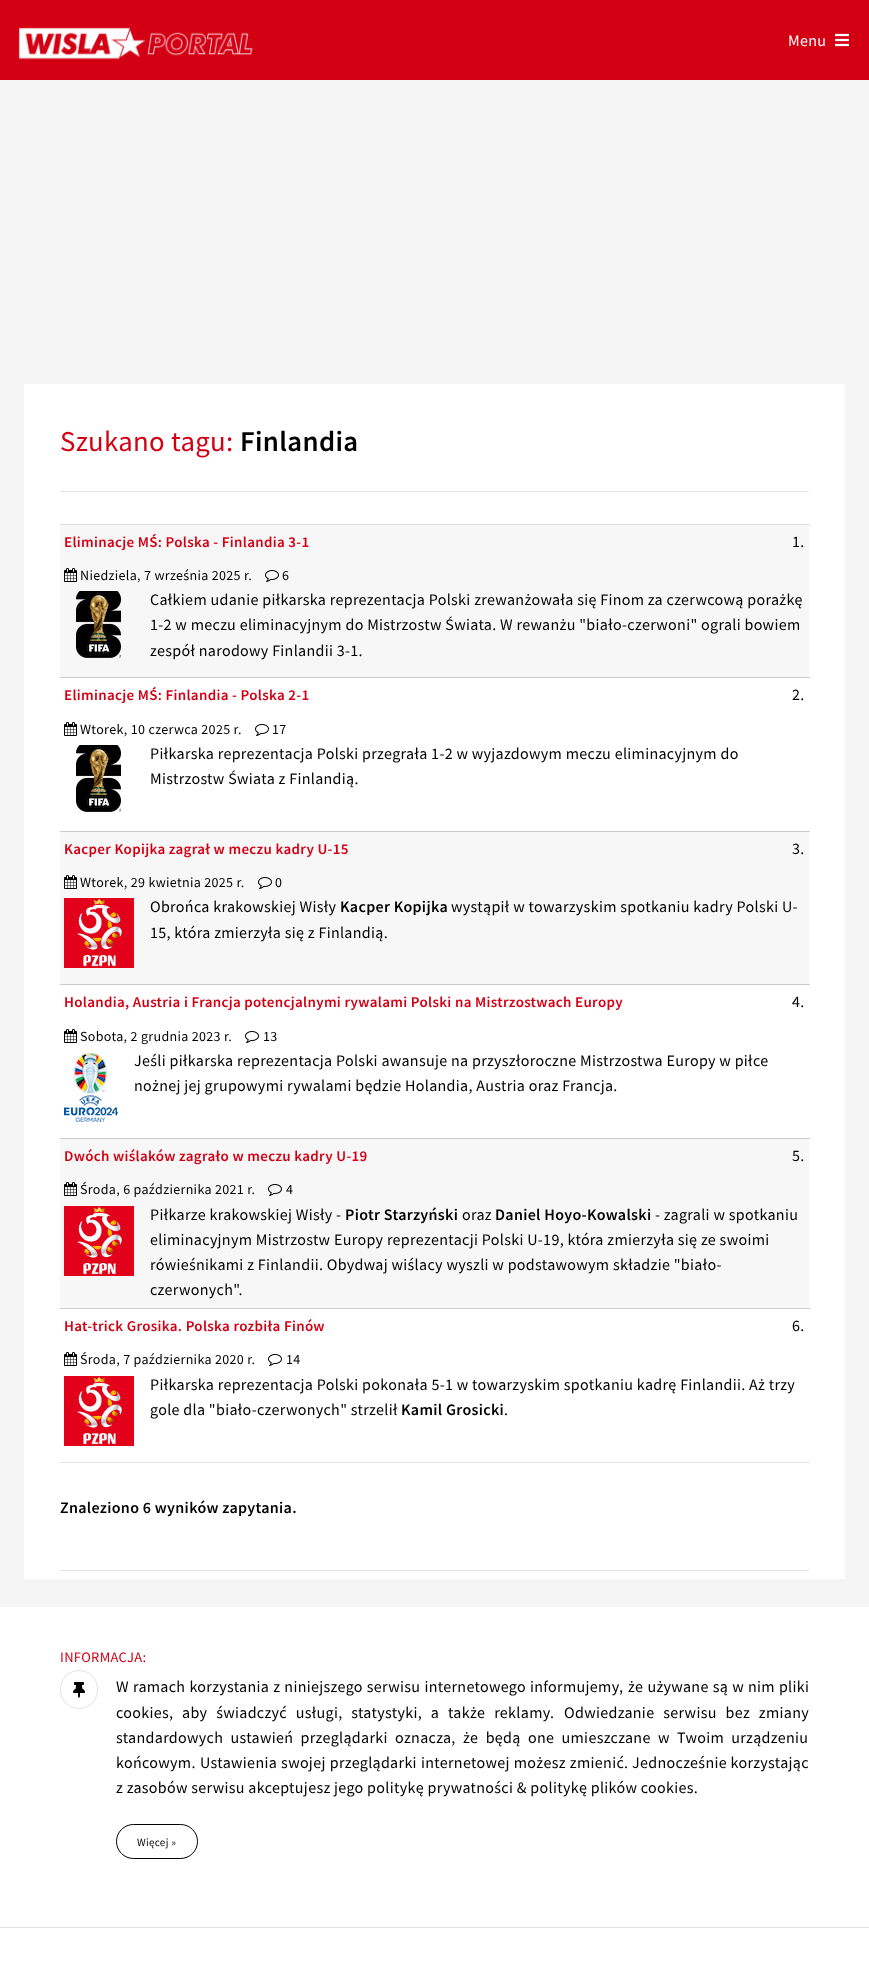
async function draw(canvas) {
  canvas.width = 869
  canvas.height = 1971
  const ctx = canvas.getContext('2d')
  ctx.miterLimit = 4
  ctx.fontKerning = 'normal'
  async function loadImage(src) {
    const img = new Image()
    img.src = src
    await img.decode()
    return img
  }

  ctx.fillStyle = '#f5f5f5'
  ctx.fillRect(0, 0, 869, 1971)
  ctx.fillStyle = '#d30014'
  ctx.fillRect(0, 0, 869, 80)
  ctx.drawImage(await loadImage('image0.png'), 18, 27, 235, 33)
  ctx.letterSpacing = '0.32px'
  ctx.font = '16px Source Sans Pro'
  ctx.fillStyle = '#fff'
  ctx.fillText('Menu', 788, 46)
  ctx.drawImage(await loadImage('image1.png'), 835, 33, 14, 14)
  ctx.fillRect(24, 384, 821, 1195)
  ctx.fillStyle = '#e3e3e3'
  ctx.fillRect(809, 524, 1, 1)
  ctx.fillStyle = '#cecece'
  ctx.fillRect(809, 677, 1, 1)
  ctx.fillRect(809, 831, 1, 1)
  ctx.fillRect(809, 984, 1, 1)
  ctx.fillRect(809, 1138, 1, 1)
  ctx.fillStyle = '#e3e3e3'
  ctx.fillRect(60, 1570, 749, 1)
  ctx.font = '28.75px Source Sans Pro'
  ctx.fillStyle = '#d30014'
  ctx.fillText('Szukano tagu:', 60, 451)
  ctx.font = '600 28.75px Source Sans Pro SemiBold'
  ctx.fillStyle = '#000'
  ctx.fillText('Finlandia', 240, 451)
  ctx.fillStyle = '#e3e3e3'
  ctx.fillRect(60, 491, 749, 1)
  ctx.fillStyle = '#f7f7f7'
  ctx.fillRect(60, 525, 749, 152)
  ctx.fillStyle = '#ddd'
  ctx.fillRect(60, 524, 749, 1)
  ctx.fillStyle = '#cacaca'
  ctx.fillRect(60, 677, 749, 1)
  ctx.font = '600 15px Source Sans Pro SemiBold'
  ctx.fillStyle = '#d30014'
  ctx.fillText('Eliminacje MŚ: Polska - Finlandia 3-1', 64, 547)
  ctx.font = '16px Source Sans Pro'
  ctx.fillStyle = '#000'
  ctx.fillText('1.', 792, 547)
  ctx.drawImage(await loadImage('image2.png'), 64, 568, 13, 14)
  ctx.font = '14px Source Sans Pro'
  ctx.fillText('Niedziela, 7 września 2025 r.', 80, 580)
  ctx.drawImage(await loadImage('image3.png'), 265, 570, 14, 12)
  ctx.fillText('6', 282, 580)
  ctx.drawImage(await loadImage('image4.png'), 76, 591, 45, 67)
  ctx.font = '16px Source Sans Pro'
  ctx.fillText('Całkiem udanie piłkarska reprezentacja Polski zrewanżowała się Finom za czerwcową porażkę', 150, 605)
  ctx.fillText('1-2 w meczu eliminacyjnym do Mistrzostw Świata. W rewanżu "biało-czerwoni" ograli bowiem', 150, 630)
  ctx.fillText('zespół narodowy Finlandii 3-1.', 150, 656)
  ctx.font = '600 15px Source Sans Pro SemiBold'
  ctx.fillStyle = '#d30014'
  ctx.fillText('Eliminacje MŚ: Finlandia - Polska 2-1', 64, 700)
  ctx.font = '16px Source Sans Pro'
  ctx.fillStyle = '#000'
  ctx.fillText('2.', 792, 700)
  ctx.drawImage(await loadImage('image5.png'), 64, 722, 13, 14)
  ctx.font = '14px Source Sans Pro'
  ctx.fillText('Wtorek, 10 czerwca 2025 r.', 80, 734)
  ctx.drawImage(await loadImage('image6.png'), 255, 724, 14, 12)
  ctx.fillText('17', 272, 734)
  ctx.drawImage(await loadImage('image7.png'), 76, 745, 45, 67)
  ctx.font = '16px Source Sans Pro'
  ctx.fillText('Piłkarska reprezentacja Polski przegrała 1-2 w wyjazdowym meczu eliminacyjnym do', 150, 759)
  ctx.fillText('Mistrzostw Świata z Finlandią.', 150, 784)
  ctx.fillStyle = '#f7f7f7'
  ctx.fillRect(60, 832, 749, 152)
  ctx.fillStyle = '#cacaca'
  ctx.fillRect(60, 831, 749, 1)
  ctx.fillRect(60, 984, 749, 1)
  ctx.font = '600 15px Source Sans Pro SemiBold'
  ctx.fillStyle = '#d30014'
  ctx.fillText('Kacper Kopijka zagrał w meczu kadry U-15', 64, 854)
  ctx.font = '16px Source Sans Pro'
  ctx.fillStyle = '#000'
  ctx.fillText('3.', 792, 854)
  ctx.drawImage(await loadImage('image2.png'), 64, 875, 13, 14)
  ctx.font = '14px Source Sans Pro'
  ctx.fillText('Wtorek, 29 kwietnia 2025 r.', 80, 887)
  ctx.drawImage(await loadImage('image3.png'), 258, 877, 14, 12)
  ctx.fillText('0', 275, 887)
  ctx.drawImage(await loadImage('image8.png'), 64, 898, 70, 70)
  ctx.font = '16px Source Sans Pro'
  ctx.fillText('Obrońca krakowskiej Wisły', 150, 912)
  ctx.font = '600 16px Source Sans Pro SemiBold'
  ctx.fillText('Kacper Kopijka', 340, 912)
  ctx.font = '16px Source Sans Pro'
  ctx.fillText('wystąpił w towarzyskim spotkaniu kadry Polski U-', 451, 912)
  ctx.fillText('15, która zmierzyła się z Finlandią.', 150, 938)
  ctx.font = '600 15px Source Sans Pro SemiBold'
  ctx.fillStyle = '#d30014'
  ctx.fillText('Holandia, Austria i Francja potencjalnymi rywalami Polski na Mistrzostwach Europy', 64, 1007)
  ctx.font = '16px Source Sans Pro'
  ctx.fillStyle = '#000'
  ctx.fillText('4.', 792, 1007)
  ctx.drawImage(await loadImage('image5.png'), 64, 1029, 13, 14)
  ctx.font = '14px Source Sans Pro'
  ctx.fillText('Sobota, 2 grudnia 2023 r.', 80, 1041)
  ctx.drawImage(await loadImage('image6.png'), 245, 1031, 14, 12)
  ctx.fillText('13', 263, 1041)
  ctx.drawImage(await loadImage('image9.png'), 64, 1052, 54, 70)
  ctx.font = '16px Source Sans Pro'
  ctx.fillText('Jeśli piłkarska reprezentacja Polski awansuje na przyszłoroczne Mistrzostwa Europy w piłce', 134, 1066)
  ctx.fillText('nożnej jej grupowymi rywalami będzie Holandia, Austria oraz Francja.', 134, 1091)
  ctx.fillStyle = '#f7f7f7'
  ctx.fillRect(60, 1139, 749, 169)
  ctx.fillStyle = '#cacaca'
  ctx.fillRect(60, 1138, 749, 1)
  ctx.fillStyle = '#cecece'
  ctx.fillRect(60, 1308, 750, 1)
  ctx.font = '600 15px Source Sans Pro SemiBold'
  ctx.fillStyle = '#d30014'
  ctx.fillText('Dwóch wiślaków zagrało w meczu kadry U-19', 64, 1161)
  ctx.font = '16px Source Sans Pro'
  ctx.fillStyle = '#000'
  ctx.fillText('5.', 792, 1161)
  ctx.drawImage(await loadImage('image2.png'), 64, 1182, 13, 14)
  ctx.font = '14px Source Sans Pro'
  ctx.fillText('Środa, 6 października 2021 r.', 80, 1194)
  ctx.drawImage(await loadImage('image3.png'), 268, 1184, 14, 12)
  ctx.fillText('4', 286, 1194)
  ctx.drawImage(await loadImage('image8.png'), 64, 1206, 70, 70)
  ctx.font = '16px Source Sans Pro'
  ctx.fillText('Piłkarze krakowskiej Wisły -', 150, 1220)
  ctx.font = '600 16px Source Sans Pro SemiBold'
  ctx.fillText('Piotr Starzyński', 345, 1220)
  ctx.font = '16px Source Sans Pro'
  ctx.fillText('oraz', 462, 1220)
  ctx.font = '600 16px Source Sans Pro SemiBold'
  ctx.fillText('Daniel Hoyo-Kowalski', 495, 1220)
  ctx.font = '16px Source Sans Pro'
  ctx.fillText('- zagrali w spotkaniu', 655, 1220)
  ctx.fillText('eliminacyjnym Mistrzostw Europy reprezentacji Polski U-19, która zmierzyła się ze swoimi', 150, 1245)
  ctx.fillText('rówieśnikami z Finlandii. Obydwaj wiślacy wyszli w podstawowym składzie "biało-', 150, 1270)
  ctx.fillText('czerwonych".', 150, 1295)
  ctx.fillStyle = '#e3e3e3'
  ctx.fillRect(60, 1462, 750, 1)
  ctx.font = '600 15px Source Sans Pro SemiBold'
  ctx.fillStyle = '#d30014'
  ctx.fillText('Hat-trick Grosika. Polska rozbiła Finów', 64, 1331)
  ctx.font = '16px Source Sans Pro'
  ctx.fillStyle = '#000'
  ctx.fillText('6.', 792, 1331)
  ctx.drawImage(await loadImage('image5.png'), 64, 1352, 13, 14)
  ctx.font = '14px Source Sans Pro'
  ctx.fillText('Środa, 7 października 2020 r.', 80, 1364)
  ctx.drawImage(await loadImage('image6.png'), 268, 1354, 14, 12)
  ctx.fillText('14', 286, 1364)
  ctx.drawImage(await loadImage('image8.png'), 64, 1376, 70, 70)
  ctx.font = '16px Source Sans Pro'
  ctx.fillText('Piłkarska reprezentacja Polski pokonała 5-1 w towarzyskim spotkaniu kadrę Finlandii. Aż trzy', 150, 1390)
  ctx.fillText('gole dla "biało-czerwonych" strzelił', 150, 1415)
  ctx.font = '600 16px Source Sans Pro SemiBold'
  ctx.fillText('Kamil Grosicki', 401, 1415)
  ctx.font = '16px Source Sans Pro'
  ctx.fillText('.', 504, 1415)
  ctx.font = '600 16px Source Sans Pro SemiBold'
  ctx.fillText('Znaleziono 6 wyników zapytania.', 60, 1513)
  ctx.fillStyle = '#fff'
  ctx.fillRect(0, 1607, 869, 364)
  ctx.font = '14.5px Source Sans Pro'
  ctx.fillStyle = '#d30014'
  ctx.fillText('INFORMACJA:', 60, 1662)
  ctx.beginPath()
  ctx.roundRect(60.5, 1670.5, 37, 38, 18.5)
  ctx.strokeStyle = '#e3e3e3'
  ctx.stroke()
  ctx.drawImage(await loadImage('image10.png'), 73, 1682, 12, 16)
  ctx.wordSpacing = '0.5px'
  ctx.font = '16px Source Sans Pro'
  ctx.fillStyle = '#000'
  ctx.fillText('W ramach korzystania z niniejszego serwisu internetowego informujemy,', 116, 1692)
  ctx.fillText('że używane są w nim pliki', 628, 1692)
  ctx.wordSpacing = '5.25px'
  ctx.fillText('cookies, aby świadczyć usługi, statystyki, a także reklamy.', 116, 1718)
  ctx.fillText('Odwiedzanie serwisu bez zmiany', 564, 1718)
  ctx.wordSpacing = '3.75px'
  ctx.fillText('standardowych ustawień przeglądarki oznacza,', 116, 1743)
  ctx.fillText('że będą one umieszczane w Twoim urządzeniu', 463, 1743)
  ctx.wordSpacing = '0px'
  ctx.fillText('końcowym.', 116, 1768)
  ctx.wordSpacing = '0.5px'
  ctx.fillText('Ustawienia swojej przeglądarki internetowej możesz zmienić.', 200, 1768)
  ctx.wordSpacing = '0px'
  ctx.fillText('Jednocześnie korzystając', 632, 1768)
  ctx.fillText('z zasobów serwisu akceptujesz jego politykę prywatności & politykę plików cookies.', 116, 1793)
  ctx.beginPath()
  ctx.roundRect(116.5, 1824.5, 81, 34, 17)
  ctx.strokeStyle = '#000'
  ctx.stroke()
  ctx.font = '11px Source Sans Pro'
  ctx.fillText('Więcej »', 137, 1846)
  ctx.fillStyle = '#e3e3e3'
  ctx.fillRect(0, 1927, 869, 1)
}

draw(document.querySelector('canvas'))
